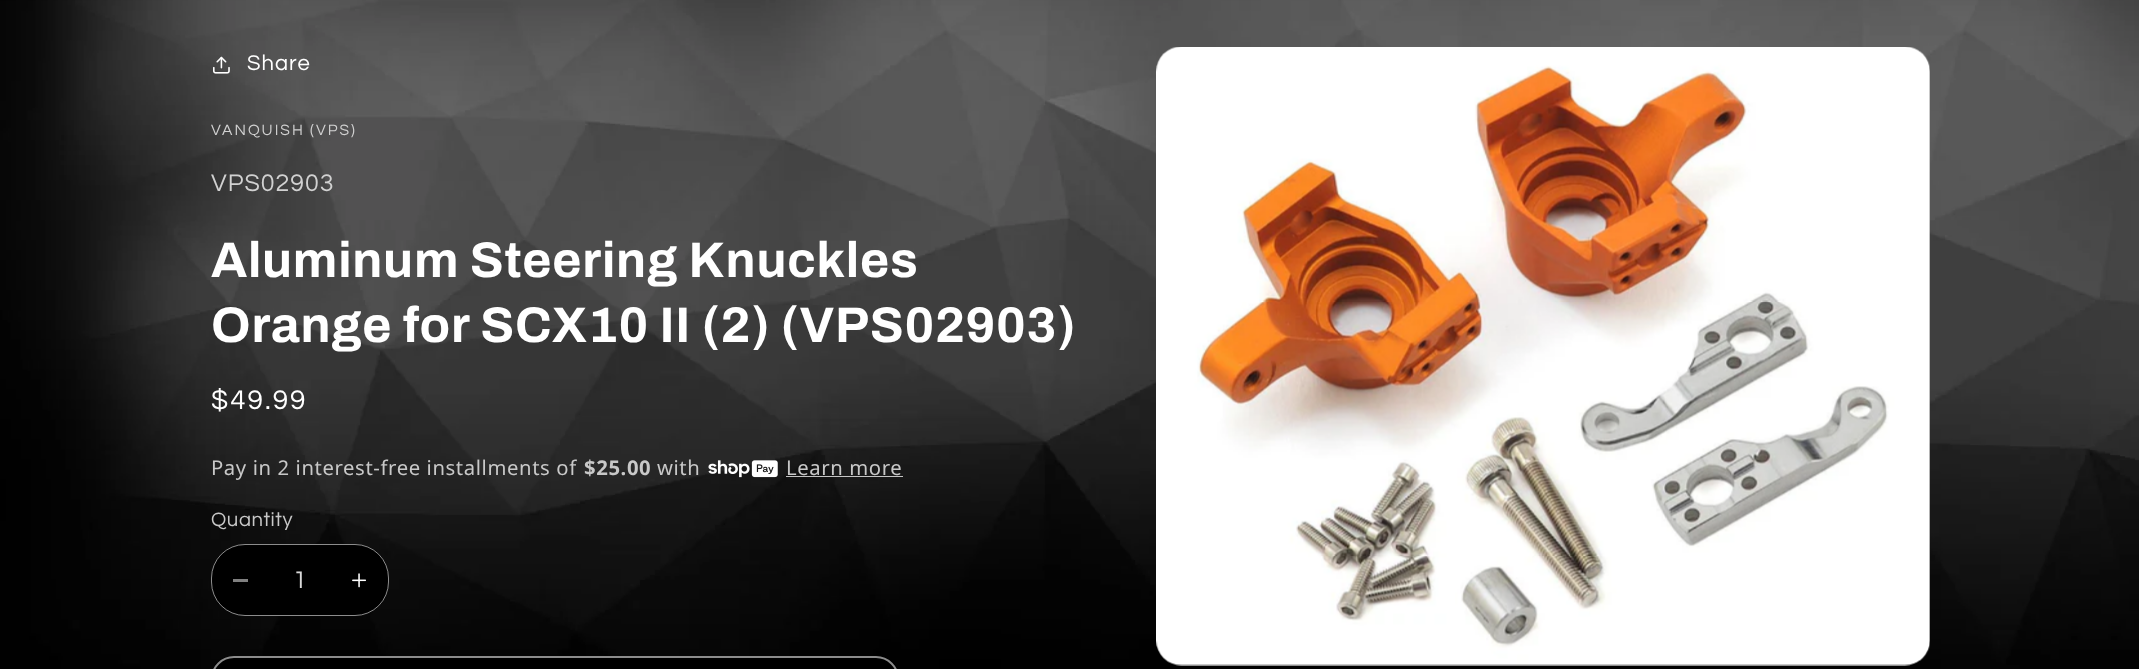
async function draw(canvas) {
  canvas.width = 2139
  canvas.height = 669
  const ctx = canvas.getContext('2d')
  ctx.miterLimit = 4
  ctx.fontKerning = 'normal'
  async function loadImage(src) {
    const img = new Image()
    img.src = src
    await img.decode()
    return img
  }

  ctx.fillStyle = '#fff'
  ctx.fillRect(0, 0, 2139, 669)
  ctx.drawImage(await loadImage('image0.png'), 0, 0, 2139, 1)
  ctx.drawImage(await loadImage('image1.png'), 0, 0, 2139, 669)
  ctx.drawImage(await loadImage('image2.png'), 213, 56, 17, 18)
  ctx.letterSpacing = '1px'
  ctx.font = '22px Questrial'
  ctx.fillText('Share', 247, 70)
  ctx.letterSpacing = '2px'
  ctx.font = '15.6px Questrial'
  ctx.fillStyle = '#d1d1d1'
  ctx.fillText('VANQUISH (VPS)', 211, 135)
  ctx.letterSpacing = '1px'
  ctx.font = '25px Questrial'
  ctx.fillText('VPS02903', 211, 191)
  ctx.letterSpacing = '0.75px'
  ctx.font = 'bold 50px Archivo'
  ctx.fillStyle = '#fff'
  ctx.fillText('Aluminum Steering Knuckles', 211, 277)
  ctx.fillText('Orange for SCX10 II (2) (VPS02903)', 211, 342)
  ctx.letterSpacing = '2px'
  ctx.font = '28px Questrial'
  ctx.fillText('$49.99', 211, 409)
  ctx.letterSpacing = '0.6px'
  ctx.font = '20.3px Noto Sans'
  ctx.fillStyle = '#c8c8c8'
  ctx.fillText('Pay in 2 interest-free installments of', 211, 475)
  ctx.font = 'bold 20.3px Noto Sans'
  ctx.fillText('$25.00', 584, 475)
  ctx.font = '20.3px Noto Sans'
  ctx.fillText('with', 657, 475)
  ctx.drawImage(await loadImage('image3.png'), 708, 460, 70, 18)
  ctx.fillText('Learn more', 786, 475)
  ctx.fillStyle = '#ffffffbf'
  ctx.fillRect(786, 476, 117, 1)
  ctx.font = '20.3px Questrial'
  ctx.fillStyle = '#c8c8c8'
  ctx.fillText('Quantity', 211, 526)
  ctx.fillStyle = '#000'
  ctx.beginPath()
  ctx.roundRect(211, 544, 178, 72, 34)
  ctx.fill()
  ctx.fillStyle = '#808080'
  ctx.fillRect(233, 579, 15, 3)
  ctx.drawImage(await loadImage('image4.png'), 352, 573, 14, 15)
  ctx.beginPath()
  ctx.roundRect(211.5, 544.5, 177, 71, 33.5)
  ctx.strokeStyle = '#ffffff8c'
  ctx.stroke()
  ctx.letterSpacing = '0px'
  ctx.font = '25px Questrial'
  ctx.fillStyle = '#d9d9d9'
  ctx.fillText('1', 293, 588)
  ctx.fillStyle = '#000'
  ctx.beginPath()
  ctx.roundRect(211, 656, 688, 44, 31)
  ctx.fill()
  ctx.beginPath()
  ctx.roundRect(212, 657, 686, 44, 30)
  ctx.lineWidth = 2
  ctx.stroke()
  ctx.beginPath()
  ctx.roundRect(1156, 48, 774, 618, 25)
  ctx.fill()
  ctx.drawImage(await loadImage('image5.png'), 1156, 48, 774, 615)
  ctx.drawImage(await loadImage('image6.png'), 1156, 47, 774, 619)
}

draw(document.querySelector('canvas'))
